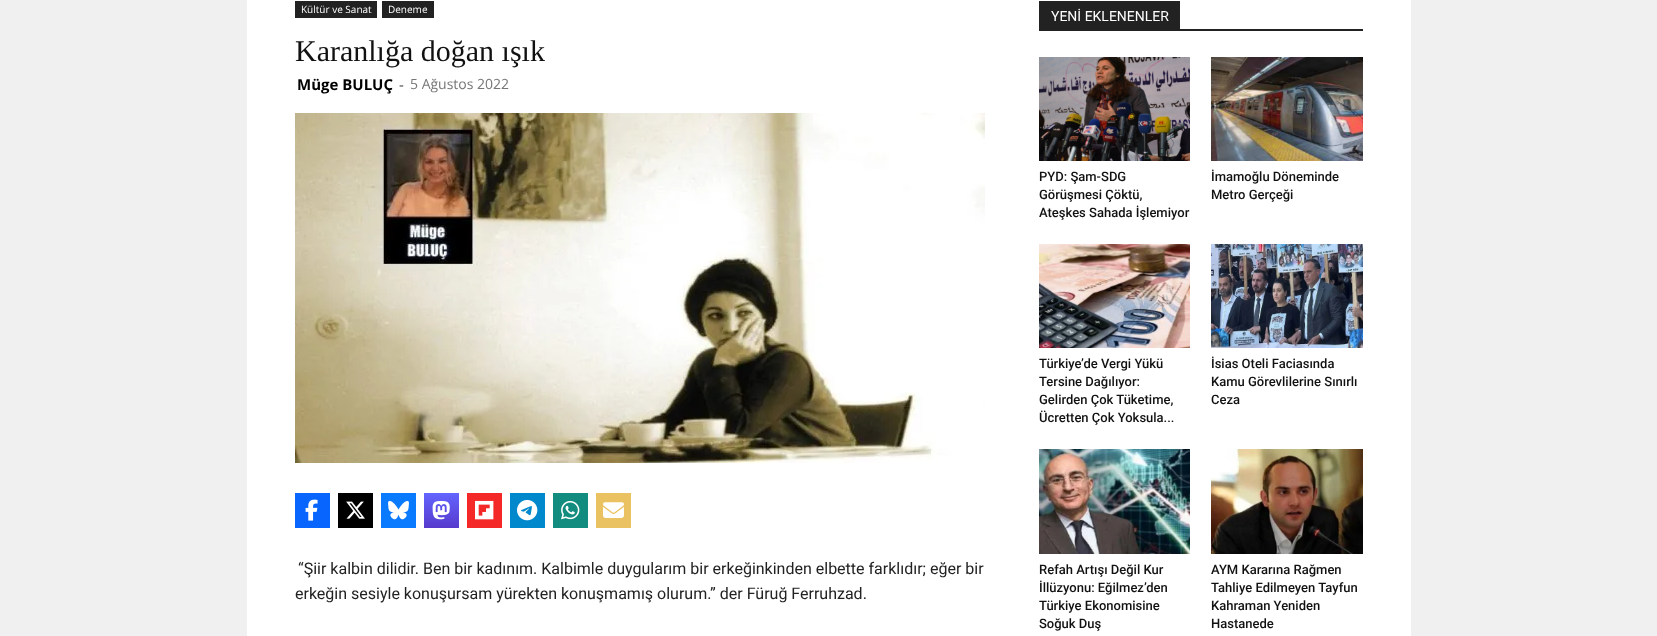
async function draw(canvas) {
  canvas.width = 1657
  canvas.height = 636
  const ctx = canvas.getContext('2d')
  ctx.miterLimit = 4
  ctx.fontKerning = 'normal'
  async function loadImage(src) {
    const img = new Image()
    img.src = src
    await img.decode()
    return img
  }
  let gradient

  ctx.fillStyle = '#f0f0f0'
  ctx.fillRect(0, 0, 1657, 636)
  ctx.fillStyle = '#fff'
  ctx.fillRect(247, 0, 1164, 636)
  ctx.fillStyle = '#222'
  ctx.fillRect(295, 1, 82, 17)
  ctx.font = '10px Open Sans'
  ctx.fillStyle = '#fff'
  ctx.fillText('Kültür ve Sanat', 301, 13)
  ctx.fillStyle = '#222'
  ctx.fillRect(382, 1, 52, 17)
  ctx.fillStyle = '#fff'
  ctx.fillText('Deneme', 388, 13)
  ctx.font = '30px Liberation Serif'
  ctx.fillStyle = '#111'
  ctx.fillText('Karanlığa doğan ışık', 295, 61)
  ctx.font = 'bold 15px Open Sans'
  ctx.fillStyle = '#000'
  ctx.fillText('Müge BULUÇ', 297, 90)
  ctx.font = '15px Open Sans'
  ctx.fillStyle = '#444'
  ctx.fillText('-', 399, 90)
  ctx.font = '14px Open Sans'
  ctx.fillStyle = '#767676'
  ctx.fillText('5 Ağustos 2022', 410, 89)
  ctx.drawImage(await loadImage('image0.png'), 295, 113, 690, 350)
  ctx.fillStyle = '#0866ff'
  ctx.fillRect(295, 493, 35, 35)
  ctx.drawImage(await loadImage('image1.png'), 305, 499, 13, 22)
  ctx.fillStyle = '#000'
  ctx.fillRect(338, 493, 35, 35)
  ctx.drawImage(await loadImage('image2.png'), 346, 501, 19, 18)
  ctx.fillStyle = '#0a7aff'
  ctx.fillRect(381, 493, 35, 35)
  ctx.drawImage(await loadImage('image3.png'), 388, 500, 21, 20)
  gradient = ctx.createLinearGradient(442, 528, 442, 493)
  gradient.addColorStop(0, '#563acc')
  gradient.addColorStop(1, '#6364ff')
  ctx.fillStyle = gradient
  ctx.fillRect(424, 493, 35, 35)
  ctx.drawImage(await loadImage('image4.png'), 432, 500, 18, 20)
  ctx.fillStyle = '#f52828'
  ctx.fillRect(467, 493, 35, 35)
  ctx.drawImage(await loadImage('image5.png'), 475, 500, 19, 20)
  ctx.fillStyle = '#08c'
  ctx.fillRect(510, 493, 35, 35)
  ctx.drawImage(await loadImage('image6.png'), 517, 499, 21, 22)
  ctx.fillStyle = '#128c7e'
  ctx.fillRect(553, 493, 35, 35)
  ctx.drawImage(await loadImage('image7.png'), 561, 500, 19, 20)
  ctx.fillStyle = '#ebc262'
  ctx.fillRect(596, 493, 35, 35)
  ctx.drawImage(await loadImage('image8.png'), 603, 502, 21, 16)
  ctx.font = '16px Roboto'
  ctx.fillStyle = '#222'
  ctx.fillText('“Şiir kalbin dilidir. Ben bir kadınım. Kalbimle duygularım bir erkeğinkinden elbette farklıdır; eğer bir', 298, 574)
  ctx.fillText('erkeğin sesiyle konuşursam yürekten konuşmamış olurum.” der Füruğ Ferruhzad.', 295, 599)
  ctx.fillRect(1039, 29, 324, 2)
  ctx.fillRect(1039, 1, 141, 28)
  ctx.font = '14px Roboto'
  ctx.fillStyle = '#fff'
  ctx.fillText('YENİ EKLENENLER', 1051, 21)
  ctx.drawImage(await loadImage('image9.png'), 1039, 57, 151, 104)
  ctx.font = '500 13px Roboto'
  ctx.fillStyle = '#111'
  ctx.fillText('PYD: Şam-SDG', 1039, 181)
  ctx.fillText('Görüşmesi Çöktü,', 1039, 199)
  ctx.fillText('Ateşkes Sahada İşlemiyor', 1039, 217)
  ctx.drawImage(await loadImage('image10.png'), 1211, 57, 152, 104)
  ctx.fillText('İmamoğlu Döneminde', 1211, 181)
  ctx.fillText('Metro Gerçeği', 1211, 199)
  ctx.drawImage(await loadImage('image11.png'), 1039, 244, 151, 104)
  ctx.fillText('Türkiye’de Vergi Yükü', 1039, 368)
  ctx.fillText('Tersine Dağılıyor:', 1039, 386)
  ctx.fillText('Gelirden Çok Tüketime,', 1039, 404)
  ctx.fillText('Ücretten Çok Yoksula...', 1039, 422)
  ctx.drawImage(await loadImage('image12.png'), 1211, 244, 152, 104)
  ctx.fillText('İsias Oteli Faciasında', 1211, 368)
  ctx.fillText('Kamu Görevlilerine Sınırlı', 1211, 386)
  ctx.fillText('Ceza', 1211, 404)
  ctx.drawImage(await loadImage('image13.png'), 1039, 449, 151, 105)
  ctx.fillText('Refah Artışı Değil Kur', 1039, 574)
  ctx.fillText('İllüzyonu: Eğilmez’den', 1039, 592)
  ctx.fillText('Türkiye Ekonomisine', 1039, 610)
  ctx.fillText('Soğuk Duş', 1039, 628)
  ctx.drawImage(await loadImage('image14.png'), 1211, 449, 152, 105)
  ctx.fillText('AYM Kararına Rağmen', 1211, 574)
  ctx.fillText('Tahliye Edilmeyen Tayfun', 1211, 592)
  ctx.fillText('Kahraman Yeniden', 1211, 610)
  ctx.fillText('Hastanede', 1211, 628)
}

draw(document.querySelector('canvas'))
